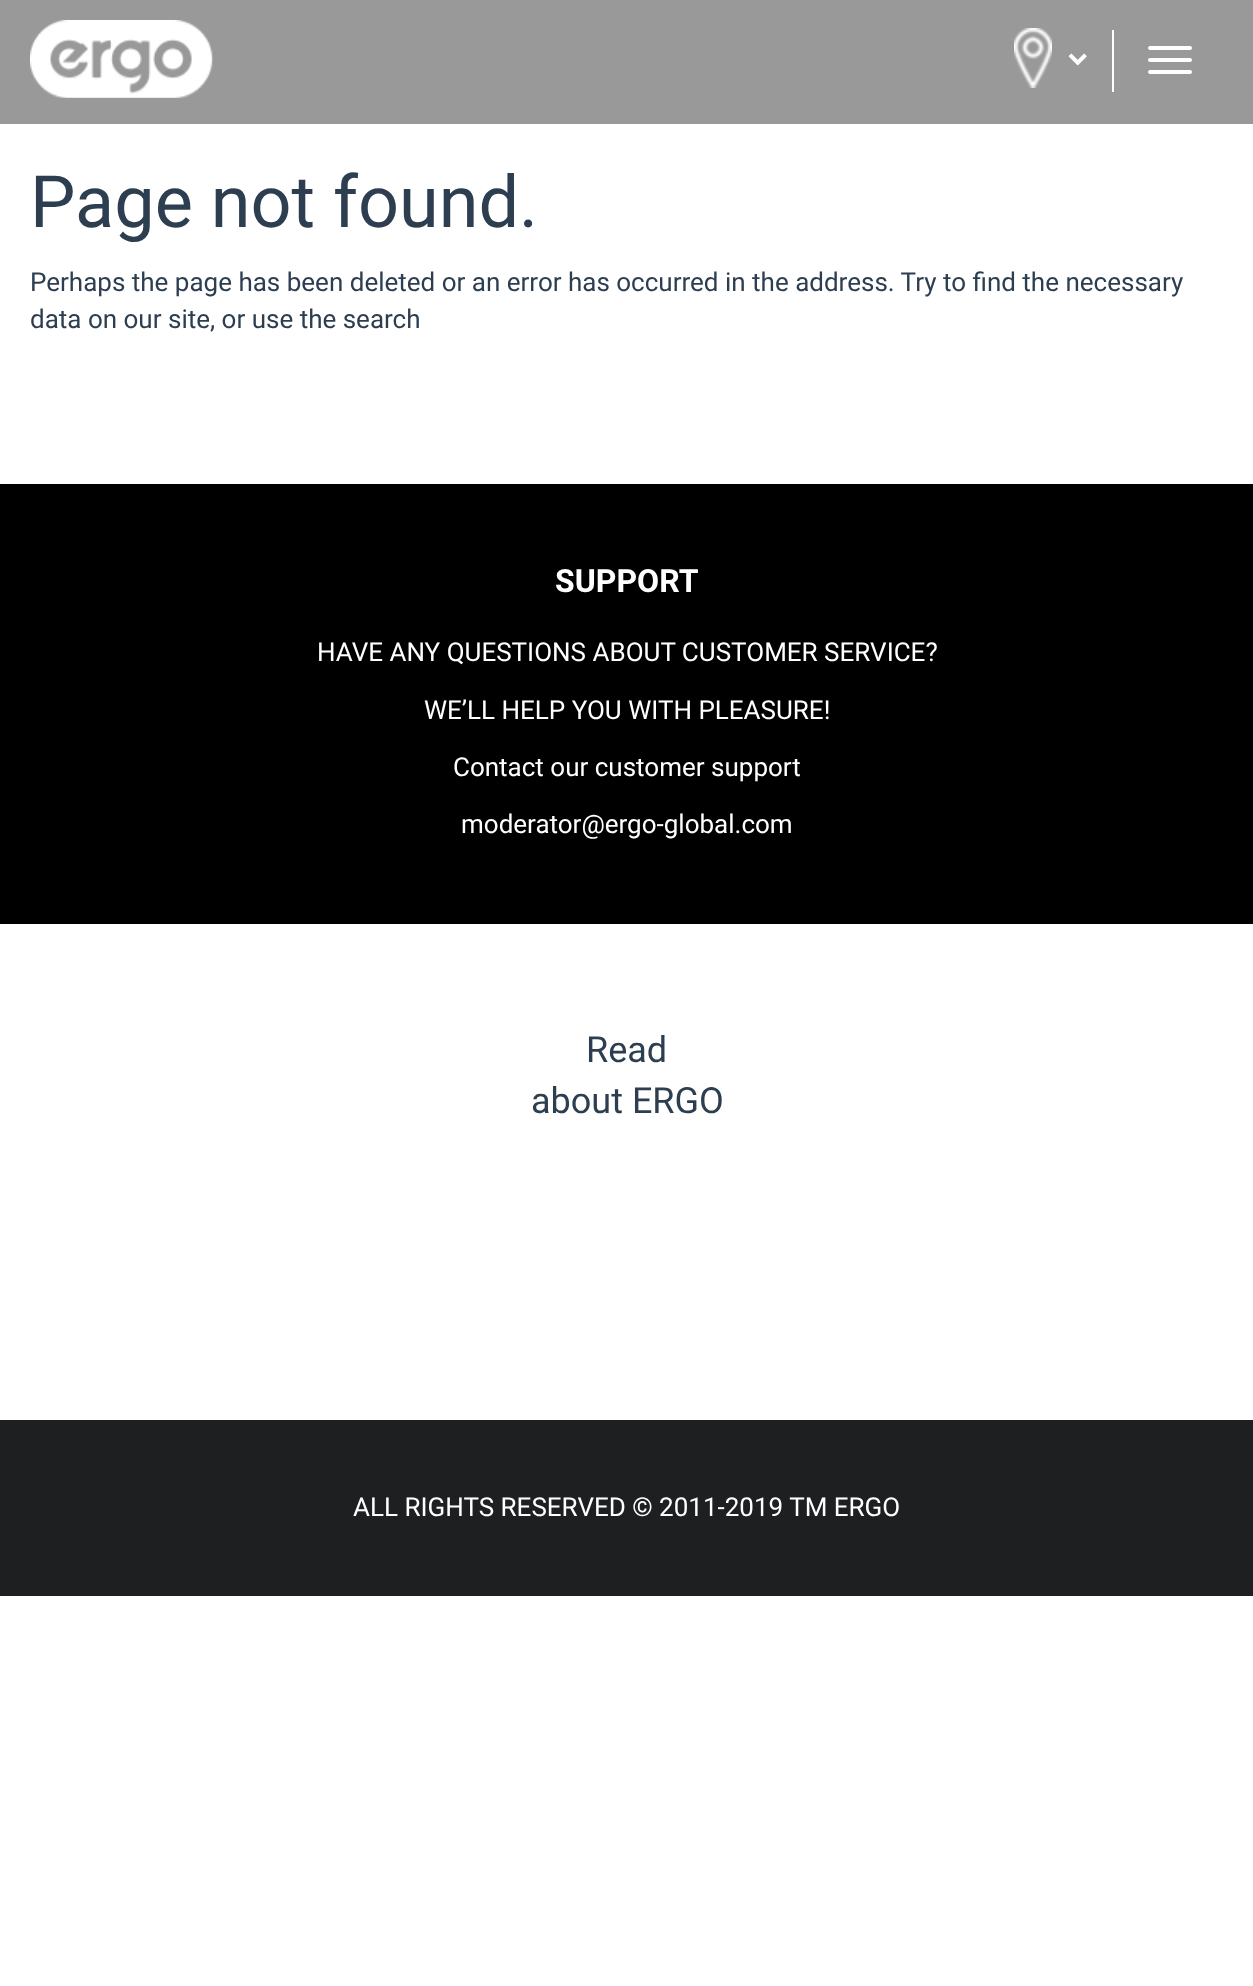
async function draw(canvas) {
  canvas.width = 1253
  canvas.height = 1986
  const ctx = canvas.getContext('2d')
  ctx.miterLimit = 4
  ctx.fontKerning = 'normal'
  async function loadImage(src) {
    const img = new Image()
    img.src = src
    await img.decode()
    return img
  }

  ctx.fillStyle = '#fff'
  ctx.fillRect(0, 0, 1253, 1986)
  ctx.fillStyle = '#999'
  ctx.fillRect(0, 0, 1253, 124)
  ctx.drawImage(await loadImage('image0.png'), 30, 20, 183, 78)
  ctx.drawImage(await loadImage('image1.png'), 1014, 28, 38, 60)
  ctx.drawImage(await loadImage('image2.png'), 1068, 53, 19, 13)
  ctx.fillStyle = '#fff'
  ctx.fillRect(1112, 30, 2, 62)
  ctx.beginPath()
  ctx.roundRect(1148, 46, 44, 4, 2)
  ctx.fill()
  ctx.beginPath()
  ctx.roundRect(1148, 58, 44, 4, 2)
  ctx.fill()
  ctx.beginPath()
  ctx.roundRect(1148, 70, 44, 4, 2)
  ctx.fill()
  ctx.font = '72px Roboto'
  ctx.fillStyle = '#2c3e50'
  ctx.fillText('Page not found.', 30, 227)
  ctx.font = '26px Roboto'
  ctx.fillText('Perhaps the page has been deleted or an error has occurred in the address. Try to find the necessary', 30, 291)
  ctx.fillText('data on our site, or use the search', 30, 328)
  ctx.fillStyle = '#000'
  ctx.fillRect(0, 484, 1253, 440)
  ctx.font = 'bold 32px Roboto'
  ctx.fillStyle = '#fff'
  ctx.fillText('SUPPORT', 555, 592)
  ctx.font = '26px Roboto'
  ctx.fillText('HAVE ANY QUESTIONS ABOUT CUSTOMER SERVICE?', 317, 661)
  ctx.fillText('WE’LL HELP YOU WITH PLEASURE!', 424, 719)
  ctx.fillText('Contact our customer support', 453, 776)
  ctx.fillText('moderator@ergo-global.com', 461, 833)
  ctx.font = '36px Roboto'
  ctx.fillStyle = '#2c3e50'
  ctx.fillText('Read', 586, 1062)
  ctx.fillText('about ERGO', 531, 1113)
  ctx.fillStyle = '#1e1f21'
  ctx.fillRect(0, 1420, 1253, 176)
  ctx.font = '26px Roboto'
  ctx.fillStyle = '#fff'
  ctx.fillText('ALL RIGHTS RESERVED © 2011-2019 TM ERGO', 353, 1516)
}

draw(document.querySelector('canvas'))
